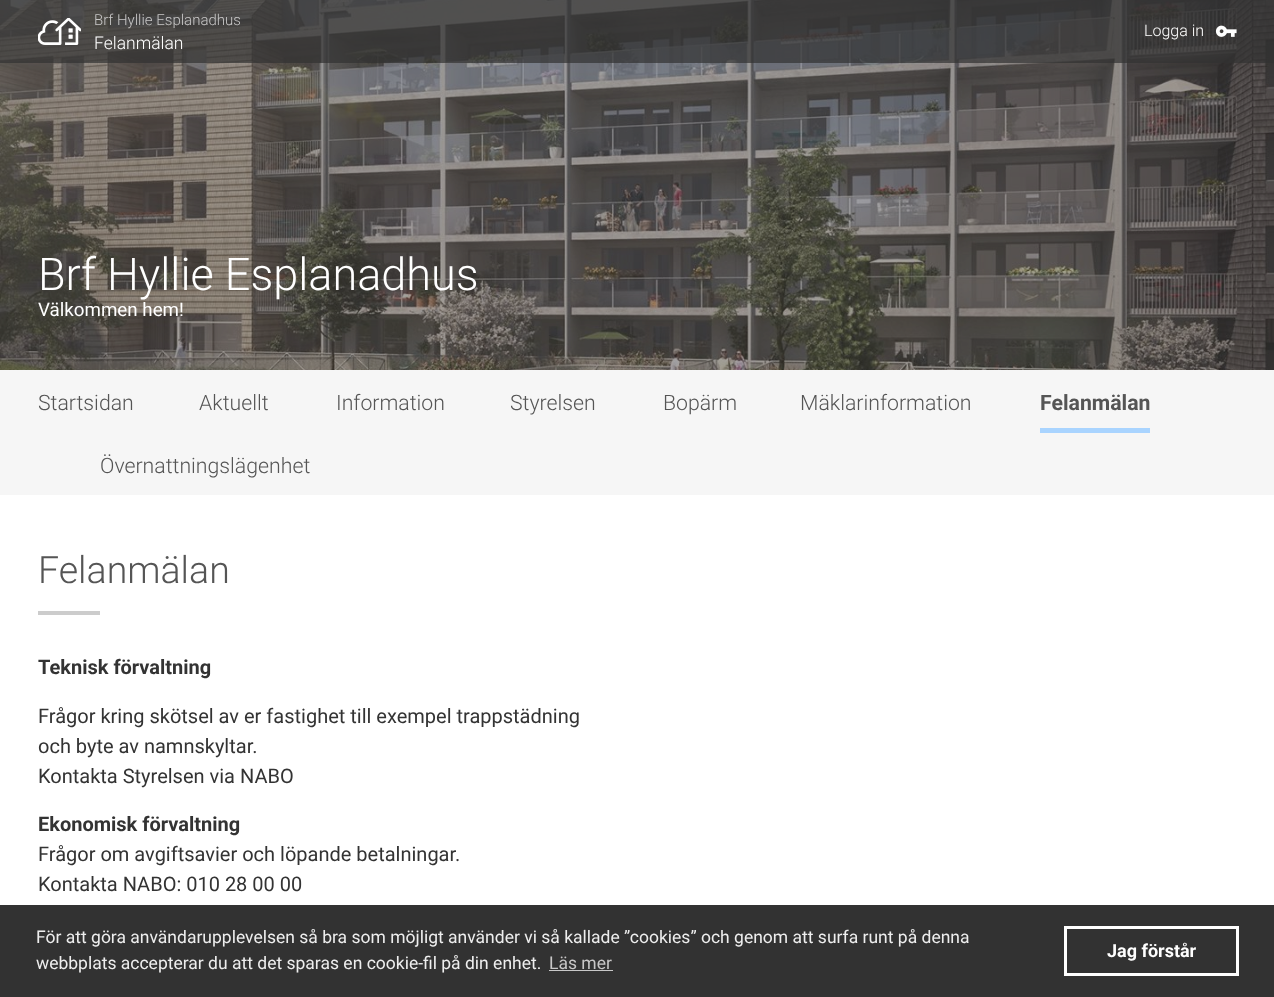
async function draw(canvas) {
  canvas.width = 1274
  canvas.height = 997
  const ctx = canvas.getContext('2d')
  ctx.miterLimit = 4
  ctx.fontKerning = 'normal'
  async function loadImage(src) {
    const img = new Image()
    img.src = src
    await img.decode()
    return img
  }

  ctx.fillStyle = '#fff'
  ctx.fillRect(0, 0, 1274, 997)
  ctx.drawImage(await loadImage('image2.png'), 0, 0, 1274, 370)
  ctx.fillStyle = '#323232b3'
  ctx.fillRect(0, 0, 1274, 63)
  ctx.drawImage(await loadImage('image0.png'), 38, 18, 43, 27)
  ctx.font = '300 15px Roboto'
  ctx.fillStyle = '#c8c7c7'
  ctx.fillText('Brf Hyllie Esplanadhus', 94, 25)
  ctx.font = '300 17.5px Roboto'
  ctx.fillStyle = '#fff'
  ctx.fillText('Felanmälan', 94, 49)
  ctx.font = '300 16px Roboto'
  ctx.fillText('Logga in', 1144, 36)
  ctx.drawImage(await loadImage('image1.png'), 1215, 25, 22, 12)
  ctx.font = '300 45px Roboto'
  ctx.fillText('Brf Hyllie Esplanadhus', 38, 290)
  ctx.font = '18.75px Roboto'
  ctx.fillText('Välkommen hem!', 38, 316)
  ctx.fillStyle = '#f6f6f6'
  ctx.fillRect(0, 370, 1274, 125)
  ctx.font = '300 21.25px Roboto'
  ctx.fillStyle = '#555'
  ctx.fillText('Startsidan', 38, 410)
  ctx.fillText('Aktuellt', 199, 410)
  ctx.fillText('Information', 336, 410)
  ctx.fillText('Styrelsen', 510, 410)
  ctx.fillText('Bopärm', 663, 410)
  ctx.fillText('Mäklarinformation', 800, 410)
  ctx.fillStyle = '#a9d4ff'
  ctx.fillRect(1040, 428, 110, 5)
  ctx.font = 'bold 21.25px Roboto'
  ctx.fillStyle = '#555'
  ctx.fillText('Felanmälan', 1040, 410)
  ctx.font = '300 21.25px Roboto'
  ctx.fillText('Övernattningslägenhet', 100, 473)
  ctx.font = '300 37.5px Roboto'
  ctx.fillText('Felanmälan', 38, 583)
  ctx.fillStyle = '#ccc'
  ctx.fillRect(38, 611, 62, 4)
  ctx.font = 'bold 20px Roboto'
  ctx.fillStyle = '#333'
  ctx.fillText('Teknisk förvaltning', 38, 674)
  ctx.font = '20px Roboto'
  ctx.fillText('Frågor kring skötsel av er fastighet till exempel trappstädning', 38, 723)
  ctx.fillText('och byte av namnskyltar.', 38, 753)
  ctx.fillText('Kontakta Styrelsen via NABO', 38, 783)
  ctx.font = 'bold 20px Roboto'
  ctx.fillText('Ekonomisk förvaltning', 38, 831)
  ctx.font = '20px Roboto'
  ctx.fillText('Frågor om avgiftsavier och löpande betalningar.', 38, 861)
  ctx.fillText('Kontakta NABO: 010 28 00 00', 38, 891)
  ctx.fillStyle = '#323232'
  ctx.fillRect(0, 905, 1274, 92)
  ctx.font = '17.5px Roboto'
  ctx.fillStyle = '#eee'
  ctx.fillText('För att göra användarupplevelsen så bra som möjligt använder vi så kallade ”cookies” och genom att surfa runt på denna', 36, 943)
  ctx.fillText('webbplats accepterar du att det sparas en cookie-fil på din enhet.', 36, 969)
  ctx.fillStyle = '#c8c7c7'
  ctx.fillText('Läs mer', 549, 969)
  ctx.fillStyle = '#c8c8c8'
  ctx.fillRect(549, 970, 64, 1)
  ctx.strokeStyle = '#fff'
  ctx.lineWidth = 3
  ctx.strokeRect(1065.5, 927.5, 172, 47)
  ctx.font = 'bold 18px Roboto'
  ctx.fillStyle = '#fff'
  ctx.fillText('Jag förstår', 1107, 957)
}

draw(document.querySelector('canvas'))
